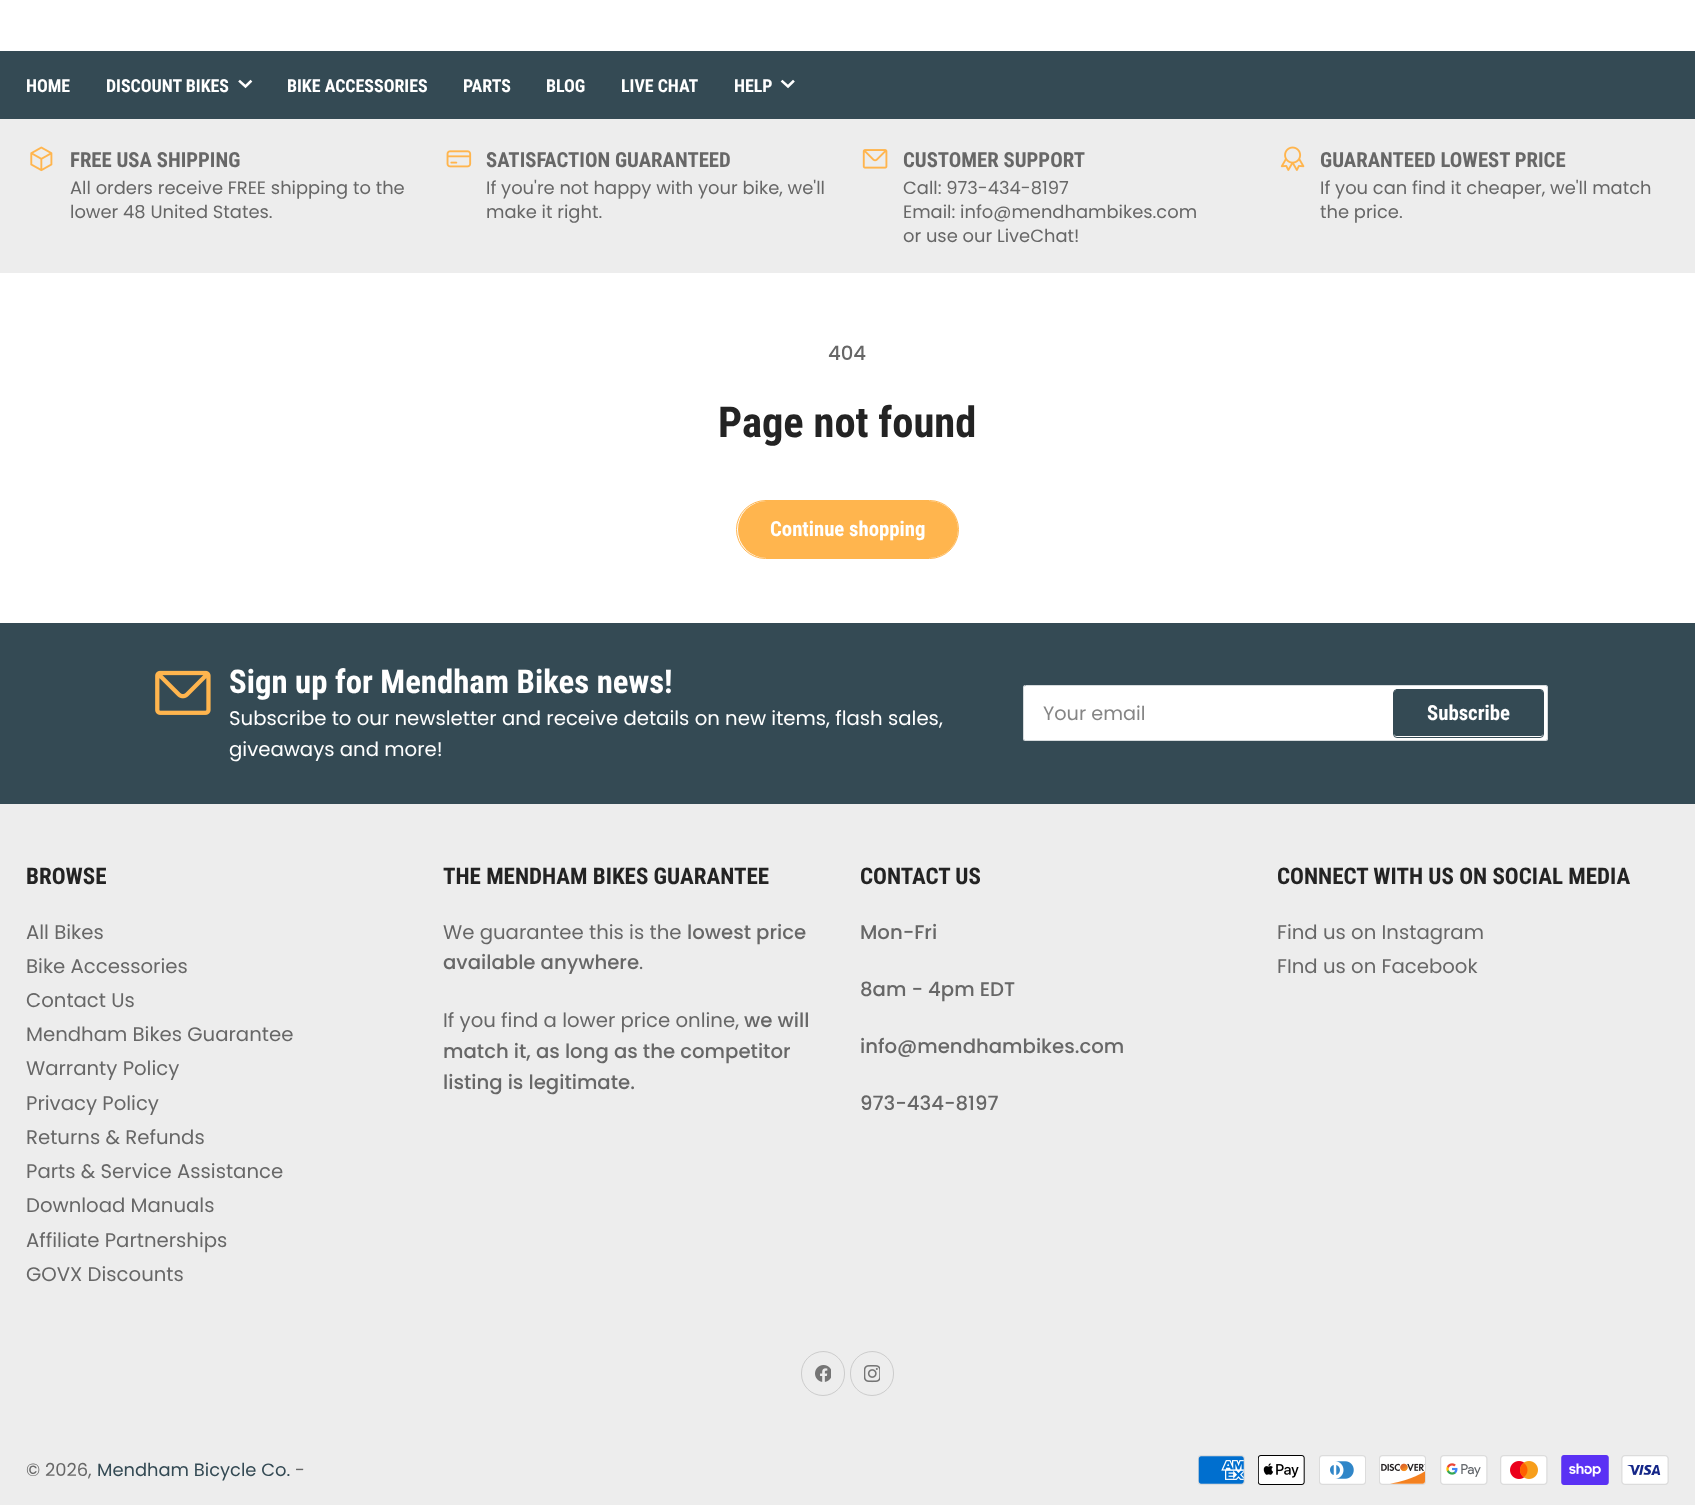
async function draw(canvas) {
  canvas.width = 1695
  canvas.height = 1505
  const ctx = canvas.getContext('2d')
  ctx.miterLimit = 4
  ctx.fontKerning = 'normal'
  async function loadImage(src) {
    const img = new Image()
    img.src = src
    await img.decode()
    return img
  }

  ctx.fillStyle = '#fff'
  ctx.fillRect(0, 0, 1695, 1505)
  ctx.fillStyle = '#344a54'
  ctx.fillRect(0, 51, 1695, 68)
  ctx.font = 'bold 17.9px Roboto Condensed'
  ctx.fillStyle = '#fff'
  ctx.fillText('HOME', 26, 92)
  ctx.fillText('DISCOUNT BIKES', 106, 92)
  ctx.beginPath()
  ctx.moveTo(250.5, 81.5)
  ctx.lineTo(245.5, 86.5)
  ctx.lineTo(240, 81.5)
  ctx.strokeStyle = '#fff'
  ctx.lineWidth = 2.6
  ctx.lineCap = 'square'
  ctx.stroke()
  ctx.fillText('BIKE ACCESSORIES', 287, 92)
  ctx.fillText('PARTS', 463, 92)
  ctx.fillText('BLOG', 546, 92)
  ctx.fillText('LIVE CHAT', 621, 92)
  ctx.fillText('HELP', 734, 92)
  ctx.beginPath()
  ctx.moveTo(793, 81.5)
  ctx.lineTo(788, 86.5)
  ctx.lineTo(782.5, 81.5)
  ctx.stroke()
  ctx.fillStyle = '#ededed'
  ctx.fillRect(0, 119, 1695, 154)
  ctx.drawImage(await loadImage('image0.png'), 30, 146, 23, 26)
  ctx.font = 'bold 20.75px Roboto Condensed'
  ctx.fillStyle = '#676767'
  ctx.fillText('FREE USA SHIPPING', 70, 167)
  ctx.font = '17.9px Poppins'
  ctx.fillText('All orders receive FREE shipping to the', 70, 194)
  ctx.fillText('lower 48 United States.', 70, 218)
  ctx.drawImage(await loadImage('image1.png'), 446, 150, 26, 18)
  ctx.font = 'bold 20.75px Roboto Condensed'
  ctx.fillText('SATISFACTION GUARANTEED', 486, 167)
  ctx.font = '17.9px Poppins'
  ctx.fillText('If you\'re not happy with your bike, we\'ll', 486, 194)
  ctx.fillText('make it right.', 486, 218)
  ctx.drawImage(await loadImage('image2.png'), 862, 149, 26, 20)
  ctx.font = 'bold 20.75px Roboto Condensed'
  ctx.fillText('CUSTOMER SUPPORT', 903, 167)
  ctx.font = '17.9px Poppins'
  ctx.fillText('Call: 973-434-8197', 903, 194)
  ctx.fillText('Email: info@mendhambikes.com', 903, 218)
  ctx.fillText('or use our LiveChat!', 903, 242)
  ctx.drawImage(await loadImage('image3.png'), 1280, 146, 25, 25)
  ctx.font = 'bold 20.75px Roboto Condensed'
  ctx.fillText('GUARANTEED LOWEST PRICE', 1320, 167)
  ctx.font = '17.9px Poppins'
  ctx.fillText('If you can find it cheaper, we\'ll match', 1320, 194)
  ctx.fillText('the price.', 1320, 218)
  ctx.font = '500 19.7px Poppins'
  ctx.fillText('404', 828, 360)
  ctx.font = 'bold 42.5px Roboto Condensed'
  ctx.fillStyle = '#232323'
  ctx.fillText('Page not found', 718, 437)
  ctx.beginPath()
  ctx.roundRect(736.5, 500.5, 222, 58, 29)
  ctx.strokeStyle = '#ffb54e'
  ctx.lineWidth = 1
  ctx.stroke()
  ctx.fillStyle = '#ffb54e'
  ctx.beginPath()
  ctx.roundRect(738, 501, 220, 57, 28.5)
  ctx.fill()
  ctx.font = 'bold 20.75px Roboto Condensed'
  ctx.fillStyle = '#fff'
  ctx.fillText('Continue shopping', 770, 536)
  ctx.fillStyle = '#344a54'
  ctx.fillRect(0, 623, 1695, 181)
  ctx.drawImage(await loadImage('image4.png'), 155, 670, 56, 45)
  ctx.font = 'bold 32.75px Roboto Condensed'
  ctx.fillStyle = '#fff'
  ctx.fillText('Sign up for Mendham Bikes news!', 229, 693)
  ctx.font = '19.7px Poppins'
  ctx.fillText('Subscribe to our newsletter and receive details on new items, flash sales,', 229, 725)
  ctx.fillText('giveaways and more!', 229, 756)
  ctx.beginPath()
  ctx.roundRect(1023, 685, 525, 56, 2.5)
  ctx.fill()
  ctx.beginPath()
  ctx.roundRect(1023.5, 685.5, 524, 55, 2)
  ctx.strokeStyle = '#344a5433'
  ctx.stroke()
  ctx.font = '19.25px Poppins'
  ctx.fillStyle = '#858585'
  ctx.fillText('Your email', 1043, 720)
  ctx.beginPath()
  ctx.roundRect(1393.5, 689.5, 150, 48, 3.5)
  ctx.strokeStyle = '#344a54'
  ctx.stroke()
  ctx.fillStyle = '#344a54'
  ctx.beginPath()
  ctx.roundRect(1394, 690, 149, 46, 2.5)
  ctx.fill()
  ctx.font = 'bold 20.75px Roboto Condensed'
  ctx.fillStyle = '#fff'
  ctx.fillText('Subscribe', 1427, 720)
  ctx.fillStyle = '#ededed'
  ctx.fillRect(0, 804, 1695, 701)
  ctx.font = 'bold 23px Roboto Condensed'
  ctx.fillStyle = '#232323'
  ctx.fillText('BROWSE', 26, 884)
  ctx.font = '19.7px Poppins'
  ctx.fillStyle = '#676767'
  ctx.fillText('All Bikes', 26, 939)
  ctx.fillText('Bike Accessories', 26, 973)
  ctx.fillText('Contact Us', 26, 1007)
  ctx.fillText('Mendham Bikes Guarantee', 26, 1041)
  ctx.fillText('Warranty Policy', 26, 1075)
  ctx.fillText('Privacy Policy', 26, 1110)
  ctx.fillText('Returns & Refunds', 26, 1144)
  ctx.fillText('Parts & Service Assistance', 26, 1178)
  ctx.fillText('Download Manuals', 26, 1212)
  ctx.fillText('Affiliate Partnerships', 26, 1247)
  ctx.fillText('GOVX Discounts', 26, 1281)
  ctx.font = 'bold 23px Roboto Condensed'
  ctx.fillStyle = '#232323'
  ctx.fillText('THE MENDHAM BIKES GUARANTEE', 443, 884)
  ctx.font = '19.7px Poppins'
  ctx.fillStyle = '#676767'
  ctx.fillText('We guarantee this is the', 443, 939)
  ctx.font = '500 19.7px Poppins'
  ctx.fillText('lowest price', 687, 939)
  ctx.fillText('available anywhere', 443, 969)
  ctx.font = '19.7px Poppins'
  ctx.fillText('.', 639, 969)
  ctx.fillText('If you find a lower price online,', 443, 1027)
  ctx.font = '500 19.7px Poppins'
  ctx.fillText('we will', 744, 1027)
  ctx.fillText('match it, as long as the competitor', 443, 1058)
  ctx.fillText('listing is legitimate.', 443, 1089)
  ctx.font = 'bold 23px Roboto Condensed'
  ctx.fillStyle = '#232323'
  ctx.fillText('CONTACT US', 860, 884)
  ctx.font = '500 19.7px Poppins'
  ctx.fillStyle = '#676767'
  ctx.fillText('Mon-Fri', 860, 939)
  ctx.fillText('8am - 4pm EDT', 860, 996)
  ctx.fillText('info@mendhambikes.com', 860, 1053)
  ctx.fillText('973-434-8197', 860, 1110)
  ctx.font = 'bold 23px Roboto Condensed'
  ctx.fillStyle = '#232323'
  ctx.fillText('CONNECT WITH US ON SOCIAL MEDIA', 1277, 884)
  ctx.font = '19.7px Poppins'
  ctx.fillStyle = '#676767'
  ctx.fillText('Find us on Instagram', 1277, 939)
  ctx.fillText('FInd us on Facebook', 1277, 973)
  ctx.beginPath()
  ctx.roundRect(801.5, 1351.5, 43, 44, 21.5)
  ctx.strokeStyle = '#ccc'
  ctx.stroke()
  ctx.drawImage(await loadImage('image5.png'), 815, 1365, 16, 17)
  ctx.beginPath()
  ctx.roundRect(850.5, 1351.5, 43, 44, 21.5)
  ctx.stroke()
  ctx.drawImage(await loadImage('image6.png'), 864, 1365, 16, 18)
  ctx.font = '17.9px Poppins'
  ctx.fillText('© 2026,', 26, 1476)
  ctx.fillStyle = '#344a54'
  ctx.fillText('Mendham Bicycle Co.', 97, 1476)
  ctx.fillStyle = '#676767'
  ctx.fillText('-', 295, 1476)
  ctx.drawImage(await loadImage('image7.png'), 1198, 1455, 47, 30)
  ctx.drawImage(await loadImage('image8.png'), 1258, 1455, 47, 30)
  ctx.drawImage(await loadImage('image9.png'), 1319, 1455, 47, 30)
  ctx.drawImage(await loadImage('image10.png'), 1379, 1455, 47, 30)
  ctx.drawImage(await loadImage('image11.png'), 1440, 1455, 48, 30)
  ctx.drawImage(await loadImage('image12.png'), 1500, 1455, 48, 30)
  ctx.drawImage(await loadImage('image13.png'), 1561, 1455, 48, 30)
  ctx.drawImage(await loadImage('image14.png'), 1621, 1455, 48, 30)
}

draw(document.querySelector('canvas'))
